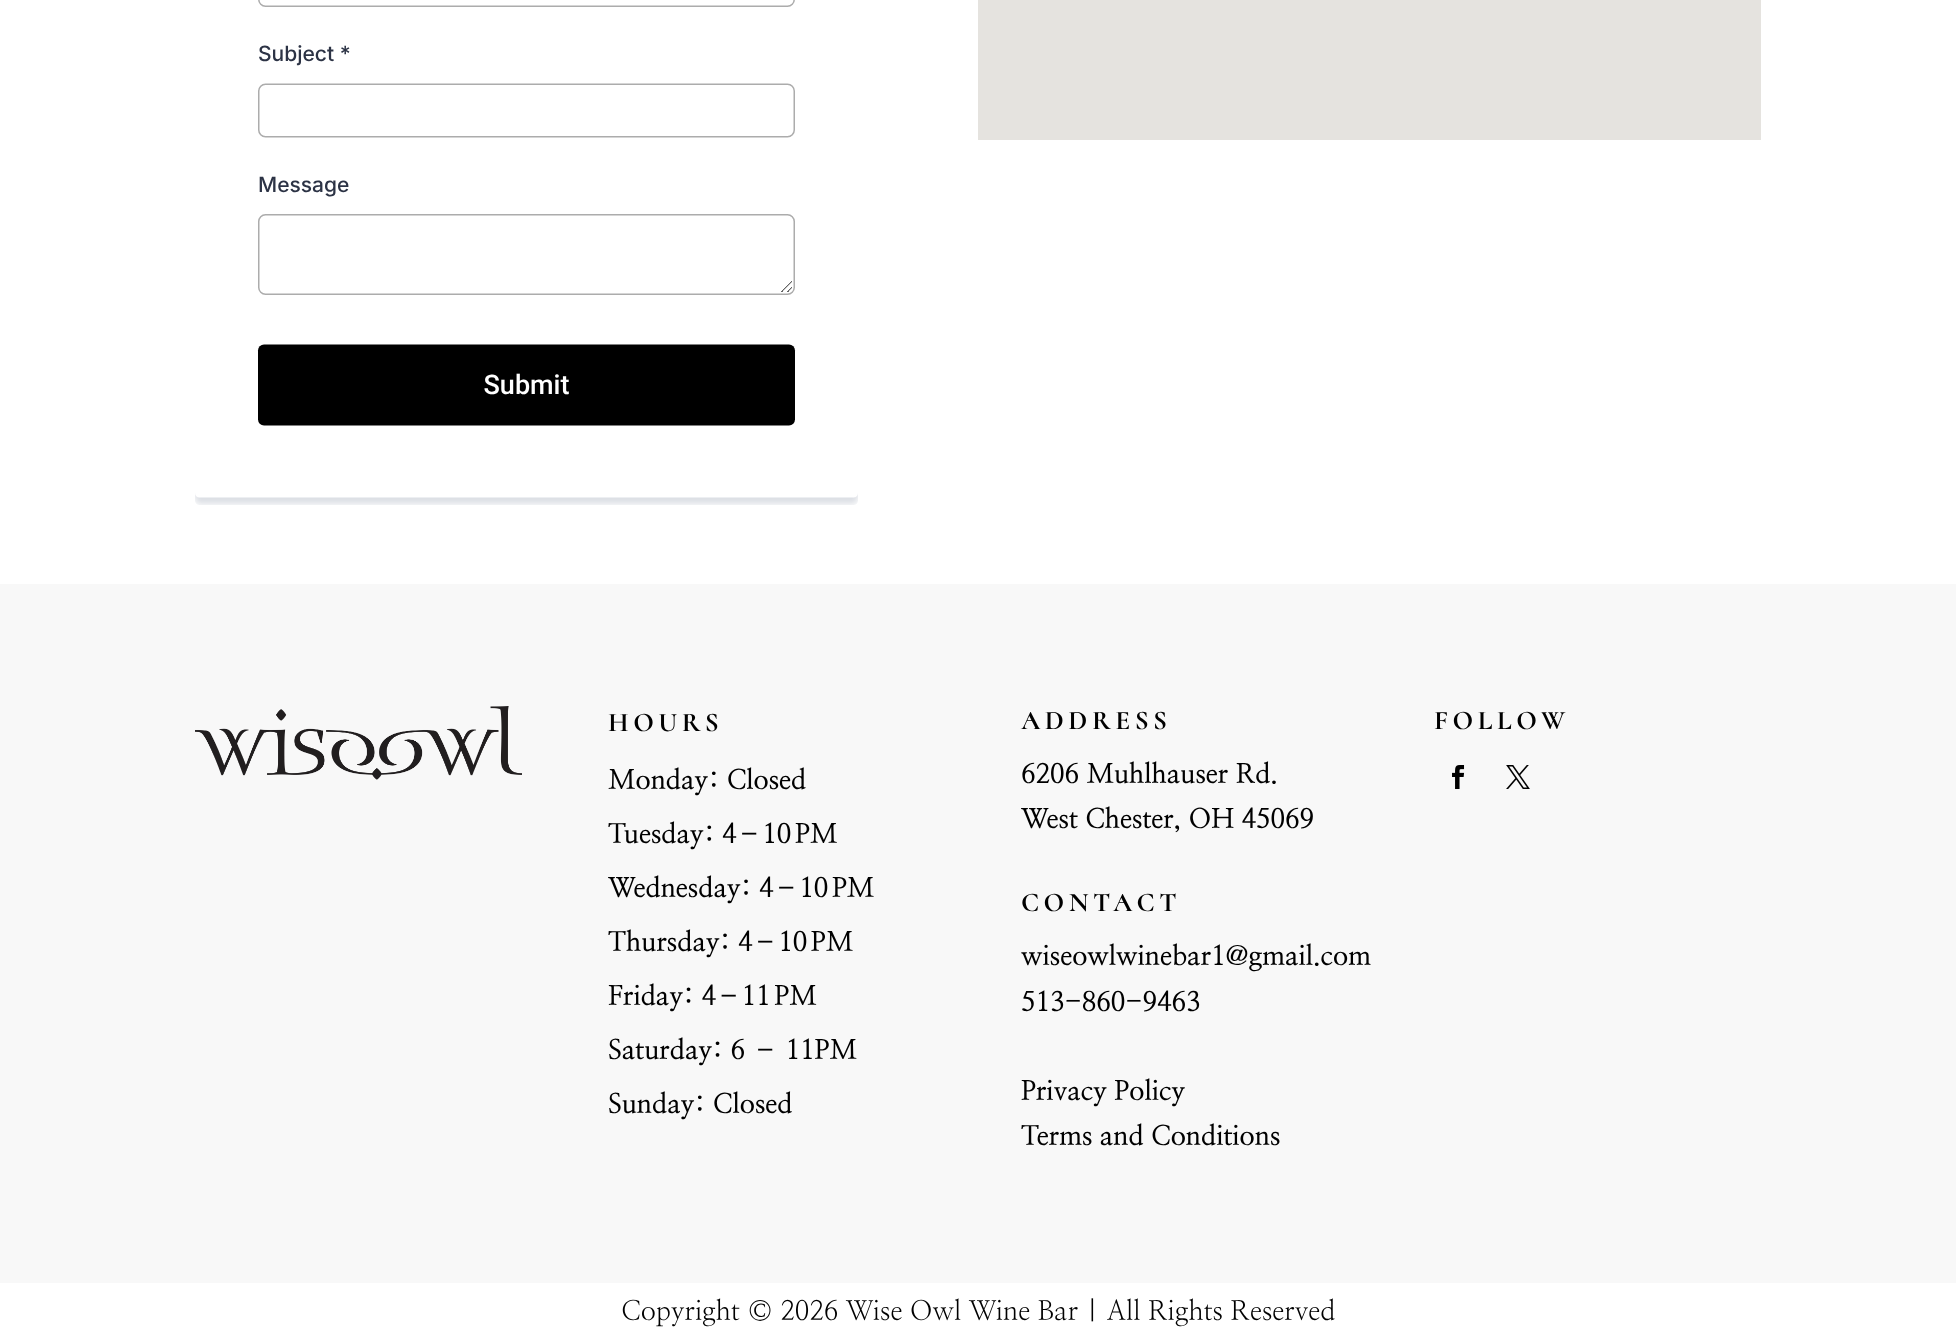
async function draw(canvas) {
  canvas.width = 1956
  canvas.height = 1343
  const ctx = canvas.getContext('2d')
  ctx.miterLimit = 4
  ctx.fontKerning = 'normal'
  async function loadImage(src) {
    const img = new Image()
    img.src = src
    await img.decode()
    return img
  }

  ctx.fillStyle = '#fff'
  ctx.fillRect(0, 0, 1956, 1343)
  ctx.drawImage(await loadImage('image0.png'), 195, 0, 663, 505)
  ctx.fillStyle = '#e5e3df'
  ctx.fillRect(978, 0, 783, 140)
  ctx.fillStyle = '#f8f8f8'
  ctx.fillRect(0, 584, 1956, 699)
  ctx.drawImage(await loadImage('image1.png'), 195, 706, 327, 74)
  ctx.letterSpacing = '4.5px'
  ctx.font = 'bold 27px Cormorant'
  ctx.fillStyle = '#000'
  ctx.fillText('HOURS', 608, 731)
  ctx.letterSpacing = '0px'
  ctx.font = 'bold 27px NanumMyeongjo'
  ctx.fillText('Monday: Closed', 608, 789)
  ctx.fillText('Tuesday: 4–10 PM', 608, 843)
  ctx.fillText('Wednesday: 4–10 PM', 608, 897)
  ctx.fillText('Thursday: 4–10 PM', 608, 951)
  ctx.fillText('Friday: 4–11 PM', 608, 1005)
  ctx.fillText('Saturday: 6 – 11PM', 608, 1059)
  ctx.fillText('Sunday: Closed', 608, 1113)
  ctx.letterSpacing = '4.5px'
  ctx.font = 'bold 27px Cormorant'
  ctx.fillText('ADDRESS', 1021, 729)
  ctx.letterSpacing = '0px'
  ctx.font = 'bold 27px NanumMyeongjo'
  ctx.fillText('6206 Muhlhauser Rd.', 1021, 783)
  ctx.fillText('West Chester, OH 45069', 1021, 828)
  ctx.letterSpacing = '4.5px'
  ctx.font = 'bold 27px Cormorant'
  ctx.fillText('CONTACT', 1021, 911)
  ctx.letterSpacing = '0px'
  ctx.font = 'bold 27px NanumMyeongjo'
  ctx.fillText('wiseowlwinebar1@gmail.com', 1021, 965)
  ctx.fillText('513-860-9463', 1021, 1011)
  ctx.fillText('Privacy Policy', 1021, 1100)
  ctx.fillText('Terms and Conditions', 1021, 1145)
  ctx.letterSpacing = '4.5px'
  ctx.font = 'bold 27px Cormorant'
  ctx.fillText('FOLLOW', 1434, 729)
  ctx.drawImage(await loadImage('image2.png'), 1452, 765, 13, 24)
  ctx.drawImage(await loadImage('image3.png'), 1506, 765, 24, 24)
  ctx.letterSpacing = '0px'
  ctx.font = '27px NanumMyeongjo'
  ctx.fillText('Copyright © 2026 Wise Owl Wine Bar | All Rights Reserved', 621, 1320)
}

draw(document.querySelector('canvas'))
